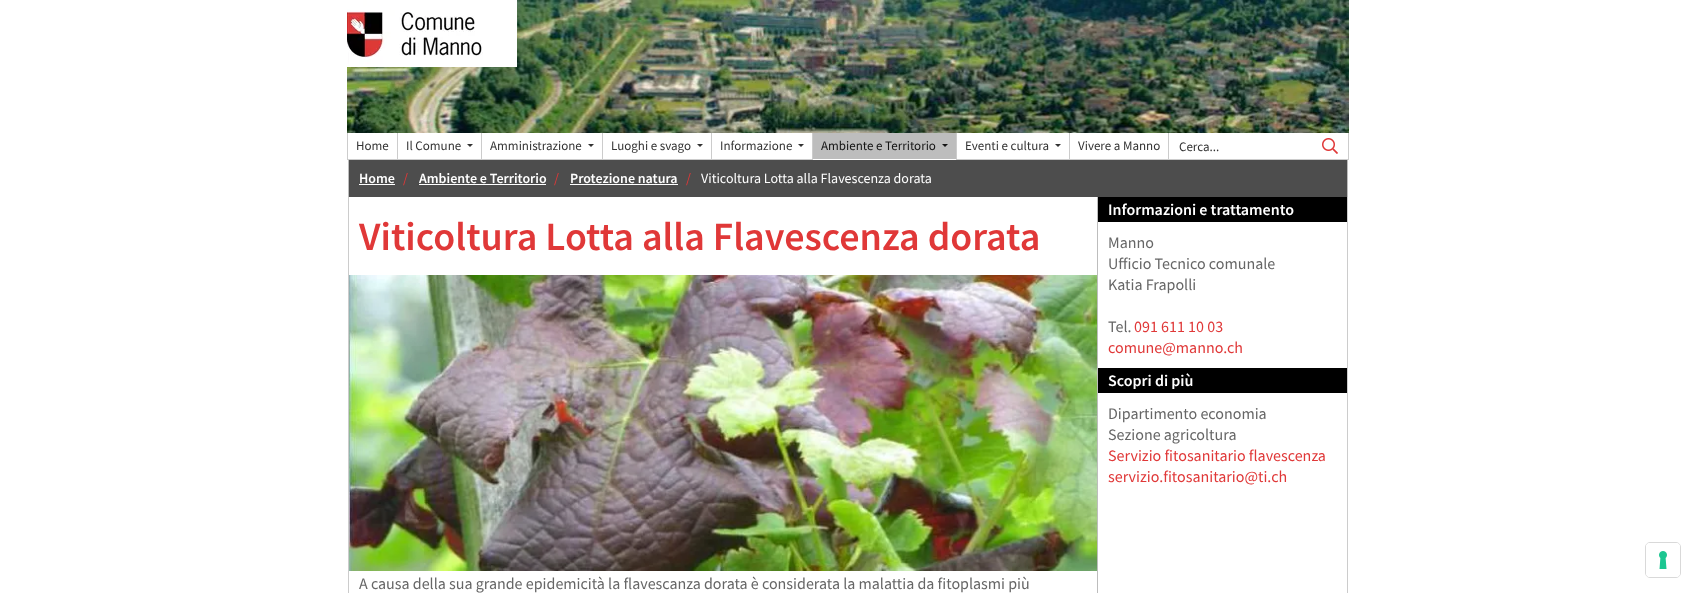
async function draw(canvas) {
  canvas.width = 1696
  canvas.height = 593
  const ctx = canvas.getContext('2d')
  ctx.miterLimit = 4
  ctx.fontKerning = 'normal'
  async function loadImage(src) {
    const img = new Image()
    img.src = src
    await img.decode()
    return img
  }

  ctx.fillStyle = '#fff'
  ctx.fillRect(0, 0, 1696, 593)
  ctx.drawImage(await loadImage('image0.png'), 347, 0, 1002, 133)
  ctx.drawImage(await loadImage('image1.png'), 347, 0, 170, 67)
  ctx.fillStyle = '#ccc'
  ctx.fillRect(347, 159, 465, 1)
  ctx.fillRect(347, 133, 1, 27)
  ctx.font = '13px Source Sans Pro'
  ctx.fillStyle = '#333'
  ctx.fillText('Home', 356, 150)
  ctx.fillStyle = '#ccc'
  ctx.fillRect(397, 133, 1, 27)
  ctx.fillStyle = '#333'
  ctx.fillText('Il Comune', 406, 150)
  ctx.beginPath()
  ctx.moveTo(467, 144)
  ctx.lineTo(473, 144)
  ctx.lineTo(470, 147)
  ctx.closePath()
  ctx.fill()
  ctx.fillStyle = '#ccc'
  ctx.fillRect(481, 133, 1, 27)
  ctx.fillStyle = '#333'
  ctx.fillText('Amministrazione', 490, 150)
  ctx.beginPath()
  ctx.moveTo(588, 144)
  ctx.lineTo(594, 144)
  ctx.lineTo(591, 147)
  ctx.closePath()
  ctx.fill()
  ctx.fillStyle = '#ccc'
  ctx.fillRect(602, 133, 1, 27)
  ctx.fillStyle = '#333'
  ctx.fillText('Luoghi e svago', 611, 150)
  ctx.beginPath()
  ctx.moveTo(697, 144)
  ctx.lineTo(703, 144)
  ctx.lineTo(700, 147)
  ctx.closePath()
  ctx.fill()
  ctx.fillStyle = '#ccc'
  ctx.fillRect(711, 133, 1, 27)
  ctx.fillStyle = '#333'
  ctx.fillText('Informazione', 720, 150)
  ctx.beginPath()
  ctx.moveTo(798, 144)
  ctx.lineTo(804, 144)
  ctx.lineTo(801, 147)
  ctx.closePath()
  ctx.fill()
  ctx.fillStyle = '#bdbdbd'
  ctx.fillRect(813, 133, 143, 26)
  ctx.fillStyle = '#ccc'
  ctx.fillRect(812, 133, 1, 27)
  ctx.fillStyle = '#131313'
  ctx.fillText('Ambiente e Territorio', 821, 150)
  ctx.beginPath()
  ctx.moveTo(942, 144)
  ctx.lineTo(948, 144)
  ctx.lineTo(945, 147)
  ctx.closePath()
  ctx.fill()
  ctx.fillStyle = '#ccc'
  ctx.fillRect(1168, 133, 1, 27)
  ctx.fillRect(956, 159, 357, 1)
  ctx.fillRect(956, 133, 1, 27)
  ctx.fillStyle = '#333'
  ctx.fillText('Eventi e cultura', 965, 150)
  ctx.beginPath()
  ctx.moveTo(1055, 144)
  ctx.lineTo(1061, 144)
  ctx.lineTo(1058, 147)
  ctx.closePath()
  ctx.fill()
  ctx.fillStyle = '#ccc'
  ctx.fillRect(1069, 133, 1, 27)
  ctx.fillStyle = '#333'
  ctx.fillText('Vivere a Manno', 1078, 150)
  ctx.fillText('Cerca...', 1179, 151)
  ctx.fillStyle = '#ccc'
  ctx.fillRect(1348, 133, 1, 27)
  ctx.fillRect(1312, 159, 37, 1)
  ctx.drawImage(await loadImage('image2.png'), 1322, 138, 16, 16)
  ctx.fillStyle = '#4d4d4d'
  ctx.fillRect(349, 160, 998, 37)
  ctx.fillStyle = '#bdbdbd'
  ctx.fillRect(1347, 160, 1, 37)
  ctx.fillRect(348, 160, 1, 37)
  ctx.font = '600 14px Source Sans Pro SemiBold'
  ctx.fillStyle = '#fff'
  ctx.fillText('Home', 359, 183)
  ctx.fillRect(359, 184, 36, 1)
  ctx.font = '14px Source Sans Pro'
  ctx.fillStyle = '#e03838'
  ctx.fillText('/', 403, 183)
  ctx.font = '600 14px Source Sans Pro SemiBold'
  ctx.fillStyle = '#fff'
  ctx.fillText('Ambiente e Territorio', 419, 183)
  ctx.fillRect(419, 184, 127, 1)
  ctx.font = '14px Source Sans Pro'
  ctx.fillStyle = '#e03838'
  ctx.fillText('/', 554, 183)
  ctx.font = '600 14px Source Sans Pro SemiBold'
  ctx.fillStyle = '#fff'
  ctx.fillText('Protezione natura', 570, 183)
  ctx.fillRect(570, 184, 108, 1)
  ctx.font = '14px Source Sans Pro'
  ctx.fillStyle = '#e03838'
  ctx.fillText('/', 686, 183)
  ctx.fillStyle = '#fff'
  ctx.fillText('Viticoltura Lotta alla Flavescenza dorata', 701, 183)
  ctx.fillStyle = '#ccc'
  ctx.fillRect(1347, 197, 1, 396)
  ctx.fillRect(348, 197, 1, 396)
  ctx.fillStyle = '#bdbdbd'
  ctx.fillRect(1097, 197, 1, 396)
  ctx.font = '600 40px Source Sans Pro SemiBold'
  ctx.fillStyle = '#e03838'
  ctx.fillText('Viticoltura Lotta alla Flavescenza dorata', 359, 250)
  ctx.drawImage(await loadImage('image3.png'), 349, 275, 748, 296)
  ctx.font = '16px Source Sans Pro'
  ctx.fillStyle = '#666'
  ctx.fillText('A causa della sua grande epidemicità la flavescanza dorata è considerata la malattia da fitoplasmi più', 359, 589)
  ctx.fillStyle = '#000'
  ctx.fillRect(1098, 197, 249, 25)
  ctx.font = '600 16px Source Sans Pro SemiBold'
  ctx.fillStyle = '#fff'
  ctx.fillText('Informazioni e trattamento', 1108, 215)
  ctx.font = '16px Source Sans Pro'
  ctx.fillStyle = '#666'
  ctx.fillText('Manno', 1108, 248)
  ctx.fillText('Ufficio Tecnico comunale', 1108, 269)
  ctx.fillText('Katia Frapolli', 1108, 290)
  ctx.fillText('Tel.', 1108, 332)
  ctx.fillStyle = '#e03838'
  ctx.fillText('091 611 10 03', 1134, 332)
  ctx.fillText('comune@manno.ch', 1108, 353)
  ctx.fillStyle = '#000'
  ctx.fillRect(1098, 368, 249, 25)
  ctx.font = '600 16px Source Sans Pro SemiBold'
  ctx.fillStyle = '#fff'
  ctx.fillText('Scopri di più', 1108, 386)
  ctx.font = '16px Source Sans Pro'
  ctx.fillStyle = '#666'
  ctx.fillText('Dipartimento economia', 1108, 419)
  ctx.fillText('Sezione agricoltura', 1108, 440)
  ctx.fillStyle = '#e03838'
  ctx.fillText('Servizio fitosanitario flavescenza', 1108, 461)
  ctx.fillText('servizio.fitosanitario@ti.ch', 1108, 482)
  ctx.beginPath()
  ctx.roundRect(1645.5, 542.5, 35, 35, 4.5)
  ctx.strokeStyle = '#d9d9d9'
  ctx.stroke()
  ctx.fillStyle = '#fff'
  ctx.beginPath()
  ctx.roundRect(1646, 543, 34, 34, 4)
  ctx.fill()
  ctx.drawImage(await loadImage('image4.png'), 1659, 551, 8, 18)
}

draw(document.querySelector('canvas'))
